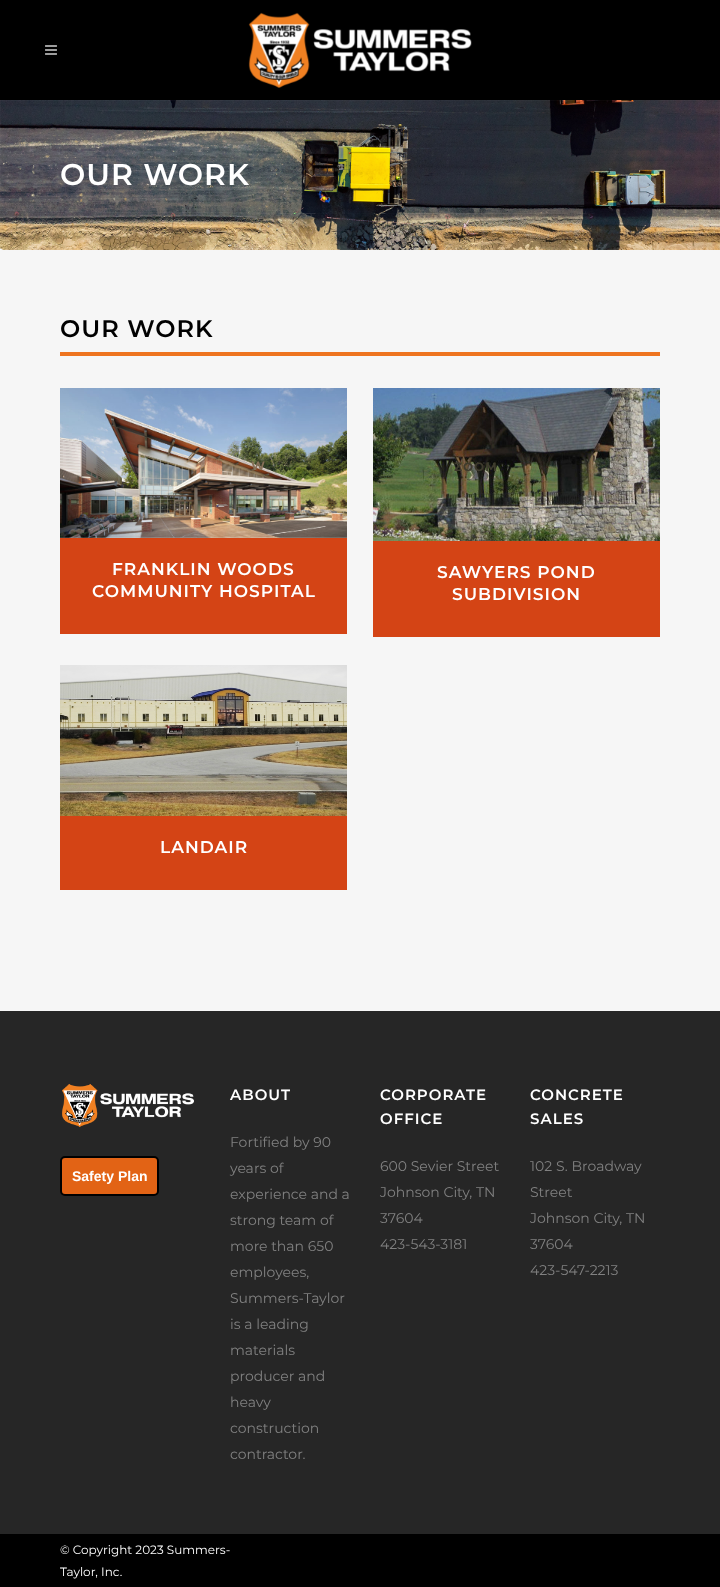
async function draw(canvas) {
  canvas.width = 720
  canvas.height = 1587
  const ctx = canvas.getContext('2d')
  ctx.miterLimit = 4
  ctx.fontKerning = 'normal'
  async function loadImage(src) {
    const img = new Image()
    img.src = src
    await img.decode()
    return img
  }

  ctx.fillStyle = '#f6f6f6'
  ctx.fillRect(0, 0, 720, 1587)
  ctx.fillStyle = '#000'
  ctx.fillRect(0, 0, 720, 100)
  ctx.drawImage(await loadImage('image0.png'), 45, 45, 12, 10)
  ctx.drawImage(await loadImage('image1.png'), 248, 12, 224, 76)
  ctx.drawImage(await loadImage('image2.png'), 0, 100, 720, 150)
  ctx.letterSpacing = '1px'
  ctx.font = '600 30px Montserrat'
  ctx.fillStyle = '#fff'
  ctx.fillText('OUR WORK', 60, 185)
  ctx.font = '600 24px Montserrat'
  ctx.fillStyle = '#000'
  ctx.fillText('OUR WORK', 60, 337)
  ctx.fillStyle = '#ee741f'
  ctx.fillRect(60, 352, 600, 4)
  ctx.drawImage(await loadImage('image3.png'), 60, 388, 287, 150)
  ctx.font = 'bold 12px Montserrat'
  ctx.fillStyle = '#867159'
  ctx.fillText('W', 251, 470)
  ctx.fillStyle = '#d44415'
  ctx.fillRect(60, 538, 287, 96)
  ctx.font = '600 17px Montserrat'
  ctx.fillStyle = '#fff'
  ctx.fillText('FRANKLIN WOODS', 112, 575)
  ctx.fillText('COMMUNITY HOSPITAL', 92, 597)
  ctx.drawImage(await loadImage('image4.png'), 373, 388, 287, 153)
  ctx.font = 'bold 12px Montserrat'
  ctx.fillStyle = '#3e3b2d'
  ctx.fillText('ZOOM', 454, 471)
  ctx.fillStyle = '#d44415'
  ctx.fillRect(373, 541, 287, 96)
  ctx.font = '600 17px Montserrat'
  ctx.fillStyle = '#fff'
  ctx.fillText('SAWYERS POND', 437, 578)
  ctx.fillText('SUBDIVISION', 452, 600)
  ctx.drawImage(await loadImage('image5.png'), 60, 665, 287, 151)
  ctx.fillStyle = '#d44415'
  ctx.fillRect(60, 816, 287, 74)
  ctx.fillStyle = '#fff'
  ctx.fillText('LANDAIR', 160, 853)
  ctx.fillStyle = '#262626'
  ctx.fillRect(0, 1011, 720, 523)
  ctx.drawImage(await loadImage('image6.png'), 62, 1083, 132, 45)
  ctx.fillStyle = '#e26315'
  ctx.beginPath()
  ctx.roundRect(61, 1157, 97, 38, 4)
  ctx.fill()
  ctx.strokeStyle = '#000'
  ctx.lineWidth = 2
  ctx.stroke()
  ctx.letterSpacing = '0px'
  ctx.font = 'bold 14px Liberation Sans'
  ctx.fillStyle = '#fff'
  ctx.fillText('Safety Plan', 72, 1181)
  ctx.letterSpacing = '1px'
  ctx.font = '600 15px Montserrat'
  ctx.fillText('ABOUT', 230, 1100)
  ctx.letterSpacing = '0px'
  ctx.font = '14px Montserrat'
  ctx.fillStyle = '#818181'
  ctx.fillText('Fortified by 90', 230, 1147)
  ctx.fillText('years of', 230, 1173)
  ctx.fillText('experience and a', 230, 1199)
  ctx.fillText('strong team of', 230, 1225)
  ctx.fillText('more than 650', 230, 1251)
  ctx.fillText('employees,', 230, 1277)
  ctx.fillText('Summers-Taylor', 230, 1303)
  ctx.fillText('is a leading', 230, 1329)
  ctx.fillText('materials', 230, 1355)
  ctx.fillText('producer and', 230, 1381)
  ctx.fillText('heavy', 230, 1407)
  ctx.fillText('construction', 230, 1433)
  ctx.fillText('contractor.', 230, 1459)
  ctx.letterSpacing = '1px'
  ctx.font = '600 15px Montserrat'
  ctx.fillStyle = '#fff'
  ctx.fillText('CORPORATE', 380, 1100)
  ctx.fillText('OFFICE', 380, 1124)
  ctx.letterSpacing = '0px'
  ctx.font = '14px Montserrat'
  ctx.fillStyle = '#818181'
  ctx.fillText('600 Sevier Street', 380, 1171)
  ctx.fillText('Johnson City, TN', 380, 1197)
  ctx.fillText('37604', 380, 1223)
  ctx.fillText('423-543-3181', 380, 1249)
  ctx.letterSpacing = '1px'
  ctx.font = '600 15px Montserrat'
  ctx.fillStyle = '#fff'
  ctx.fillText('CONCRETE', 530, 1100)
  ctx.fillText('SALES', 530, 1124)
  ctx.letterSpacing = '0px'
  ctx.font = '14px Montserrat'
  ctx.fillStyle = '#818181'
  ctx.fillText('102 S. Broadway', 530, 1171)
  ctx.fillText('Street', 530, 1197)
  ctx.fillText('Johnson City, TN', 530, 1223)
  ctx.fillText('37604', 530, 1249)
  ctx.fillText('423-547-2213', 530, 1275)
  ctx.fillStyle = '#000'
  ctx.fillRect(0, 1534, 720, 53)
  ctx.font = '12px Montserrat'
  ctx.fillStyle = '#fff'
  ctx.fillText('© Copyright 2023 Summers-', 60, 1554)
  ctx.fillText('Taylor, Inc.', 60, 1576)
}

draw(document.querySelector('canvas'))
